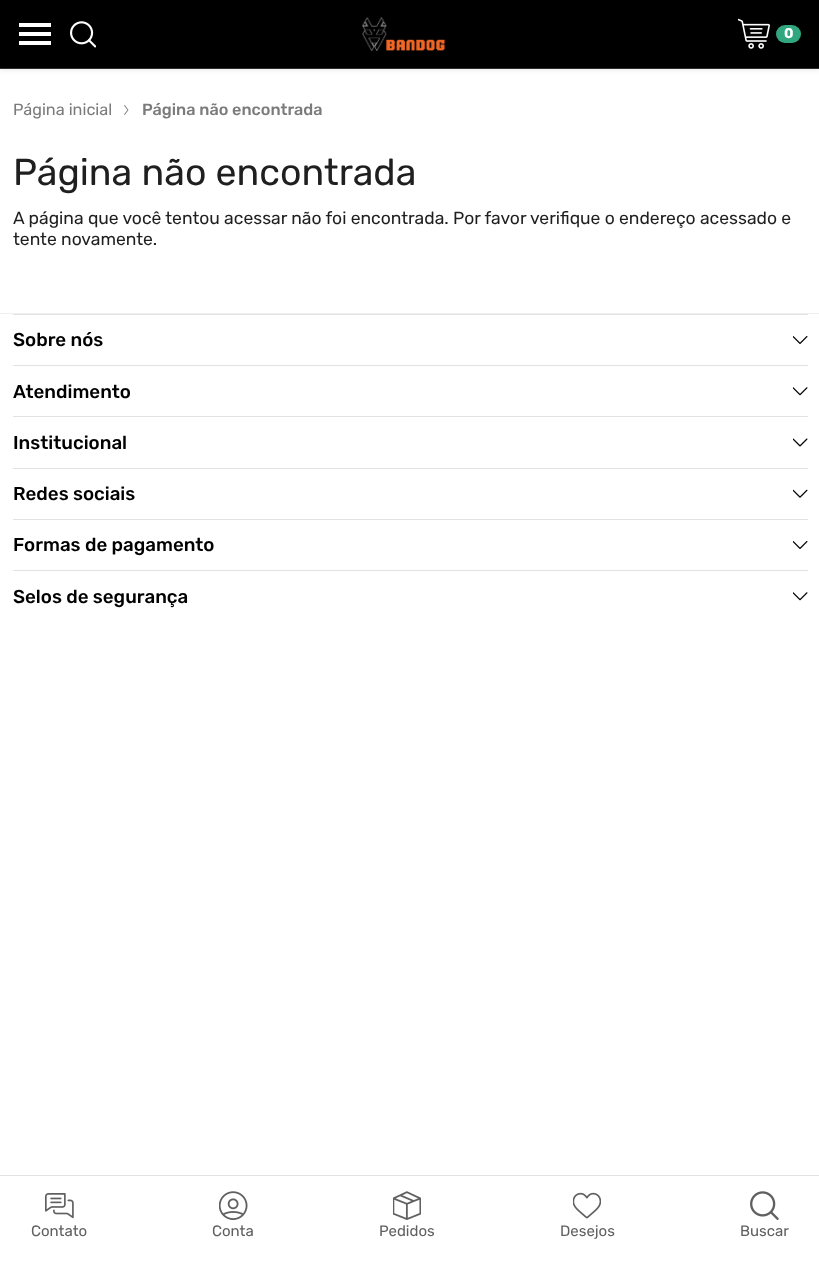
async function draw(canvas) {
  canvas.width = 819
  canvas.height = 1262
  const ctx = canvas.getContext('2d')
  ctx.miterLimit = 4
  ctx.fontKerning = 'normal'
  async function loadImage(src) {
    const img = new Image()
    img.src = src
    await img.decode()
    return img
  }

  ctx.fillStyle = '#fff'
  ctx.fillRect(0, 0, 819, 1262)
  ctx.fillStyle = '#52525221'
  ctx.filter = 'blur(2.5px)'
  ctx.beginPath()
  ctx.rect(0, 1, 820, 69)
  ctx.fill()
  ctx.filter = 'none'
  ctx.fillStyle = '#000'
  ctx.fillRect(0, 0, 819, 68)
  ctx.fillStyle = '#2d2d2d'
  ctx.fillRect(0, 68, 819, 1)
  ctx.fillStyle = '#fff'
  ctx.fillRect(19, 41, 32, 4)
  ctx.fillRect(19, 32, 32, 4)
  ctx.fillRect(19, 23, 32, 4)
  ctx.drawImage(await loadImage('image0.png'), 70, 21, 26, 27)
  ctx.drawImage(await loadImage('image1.png'), 362, 17, 84, 34)
  ctx.drawImage(await loadImage('image2.png'), 738, 18, 32, 31)
  ctx.fillStyle = '#30a77e'
  ctx.beginPath()
  ctx.roundRect(776, 25, 25, 18, 9)
  ctx.fill()
  ctx.font = 'bold 14px Rubik'
  ctx.fillStyle = '#fff'
  ctx.fillText('0', 784, 38)
  ctx.font = '16.25px Rubik'
  ctx.fillStyle = '#7b7b7b'
  ctx.fillText('Página inicial', 13, 115)
  ctx.drawImage(await loadImage('image3.png'), 124, 105, 5, 10)
  ctx.font = '500 16.25px Rubik'
  ctx.fillText('Página não encontrada', 142, 115)
  ctx.font = '37.5px Rubik'
  ctx.fillStyle = '#201f1f'
  ctx.fillText('Página não encontrada', 13, 185)
  ctx.font = '17.5px Rubik'
  ctx.fillText('A página que você tentou acessar não foi encontrada. Por favor verifique o endereço acessado e', 13, 224)
  ctx.fillText('tente novamente.', 13, 245)
  ctx.fillStyle = '#efefef'
  ctx.fillRect(0, 313, 819, 1)
  ctx.fillStyle = '#e2e2e2'
  ctx.fillRect(13, 314, 795, 1)
  ctx.font = '500 18.75px Rubik'
  ctx.fillStyle = '#000'
  ctx.fillText('Sobre nós', 13, 346)
  ctx.drawImage(await loadImage('image4.png'), 793, 336, 15, 8)
  ctx.fillStyle = '#e2e2e2'
  ctx.fillRect(13, 365, 795, 1)
  ctx.fillStyle = '#000'
  ctx.fillText('Atendimento', 13, 398)
  ctx.drawImage(await loadImage('image5.png'), 793, 387, 15, 9)
  ctx.fillStyle = '#e2e2e2'
  ctx.fillRect(13, 416, 795, 1)
  ctx.fillStyle = '#000'
  ctx.fillText('Institucional', 13, 449)
  ctx.drawImage(await loadImage('image6.png'), 793, 438, 15, 9)
  ctx.fillStyle = '#e2e2e2'
  ctx.fillRect(13, 468, 795, 1)
  ctx.fillStyle = '#000'
  ctx.fillText('Redes sociais', 13, 500)
  ctx.drawImage(await loadImage('image7.png'), 793, 489, 15, 9)
  ctx.fillStyle = '#e2e2e2'
  ctx.fillRect(13, 519, 795, 1)
  ctx.fillStyle = '#000'
  ctx.fillText('Formas de pagamento', 13, 551)
  ctx.drawImage(await loadImage('image4.png'), 793, 541, 15, 8)
  ctx.fillStyle = '#e2e2e2'
  ctx.fillRect(13, 570, 795, 1)
  ctx.fillStyle = '#000'
  ctx.fillText('Selos de segurança', 13, 603)
  ctx.drawImage(await loadImage('image5.png'), 793, 592, 15, 9)
  ctx.fillStyle = '#e2e2e2'
  ctx.fillRect(0, 1175, 819, 1)
  ctx.drawImage(await loadImage('image8.png'), 45, 1193, 29, 26)
  ctx.font = '15px Rubik'
  ctx.fillStyle = '#606060'
  ctx.fillText('Contato', 31, 1236)
  ctx.drawImage(await loadImage('image9.png'), 219, 1191, 29, 29)
  ctx.fillText('Conta', 212, 1236)
  ctx.drawImage(await loadImage('image10.png'), 393, 1191, 28, 29)
  ctx.fillText('Pedidos', 379, 1236)
  ctx.drawImage(await loadImage('image11.png'), 573, 1192, 28, 27)
  ctx.fillText('Desejos', 560, 1236)
  ctx.drawImage(await loadImage('image12.png'), 750, 1191, 29, 29)
  ctx.fillText('Buscar', 740, 1236)
}

draw(document.querySelector('canvas'))
